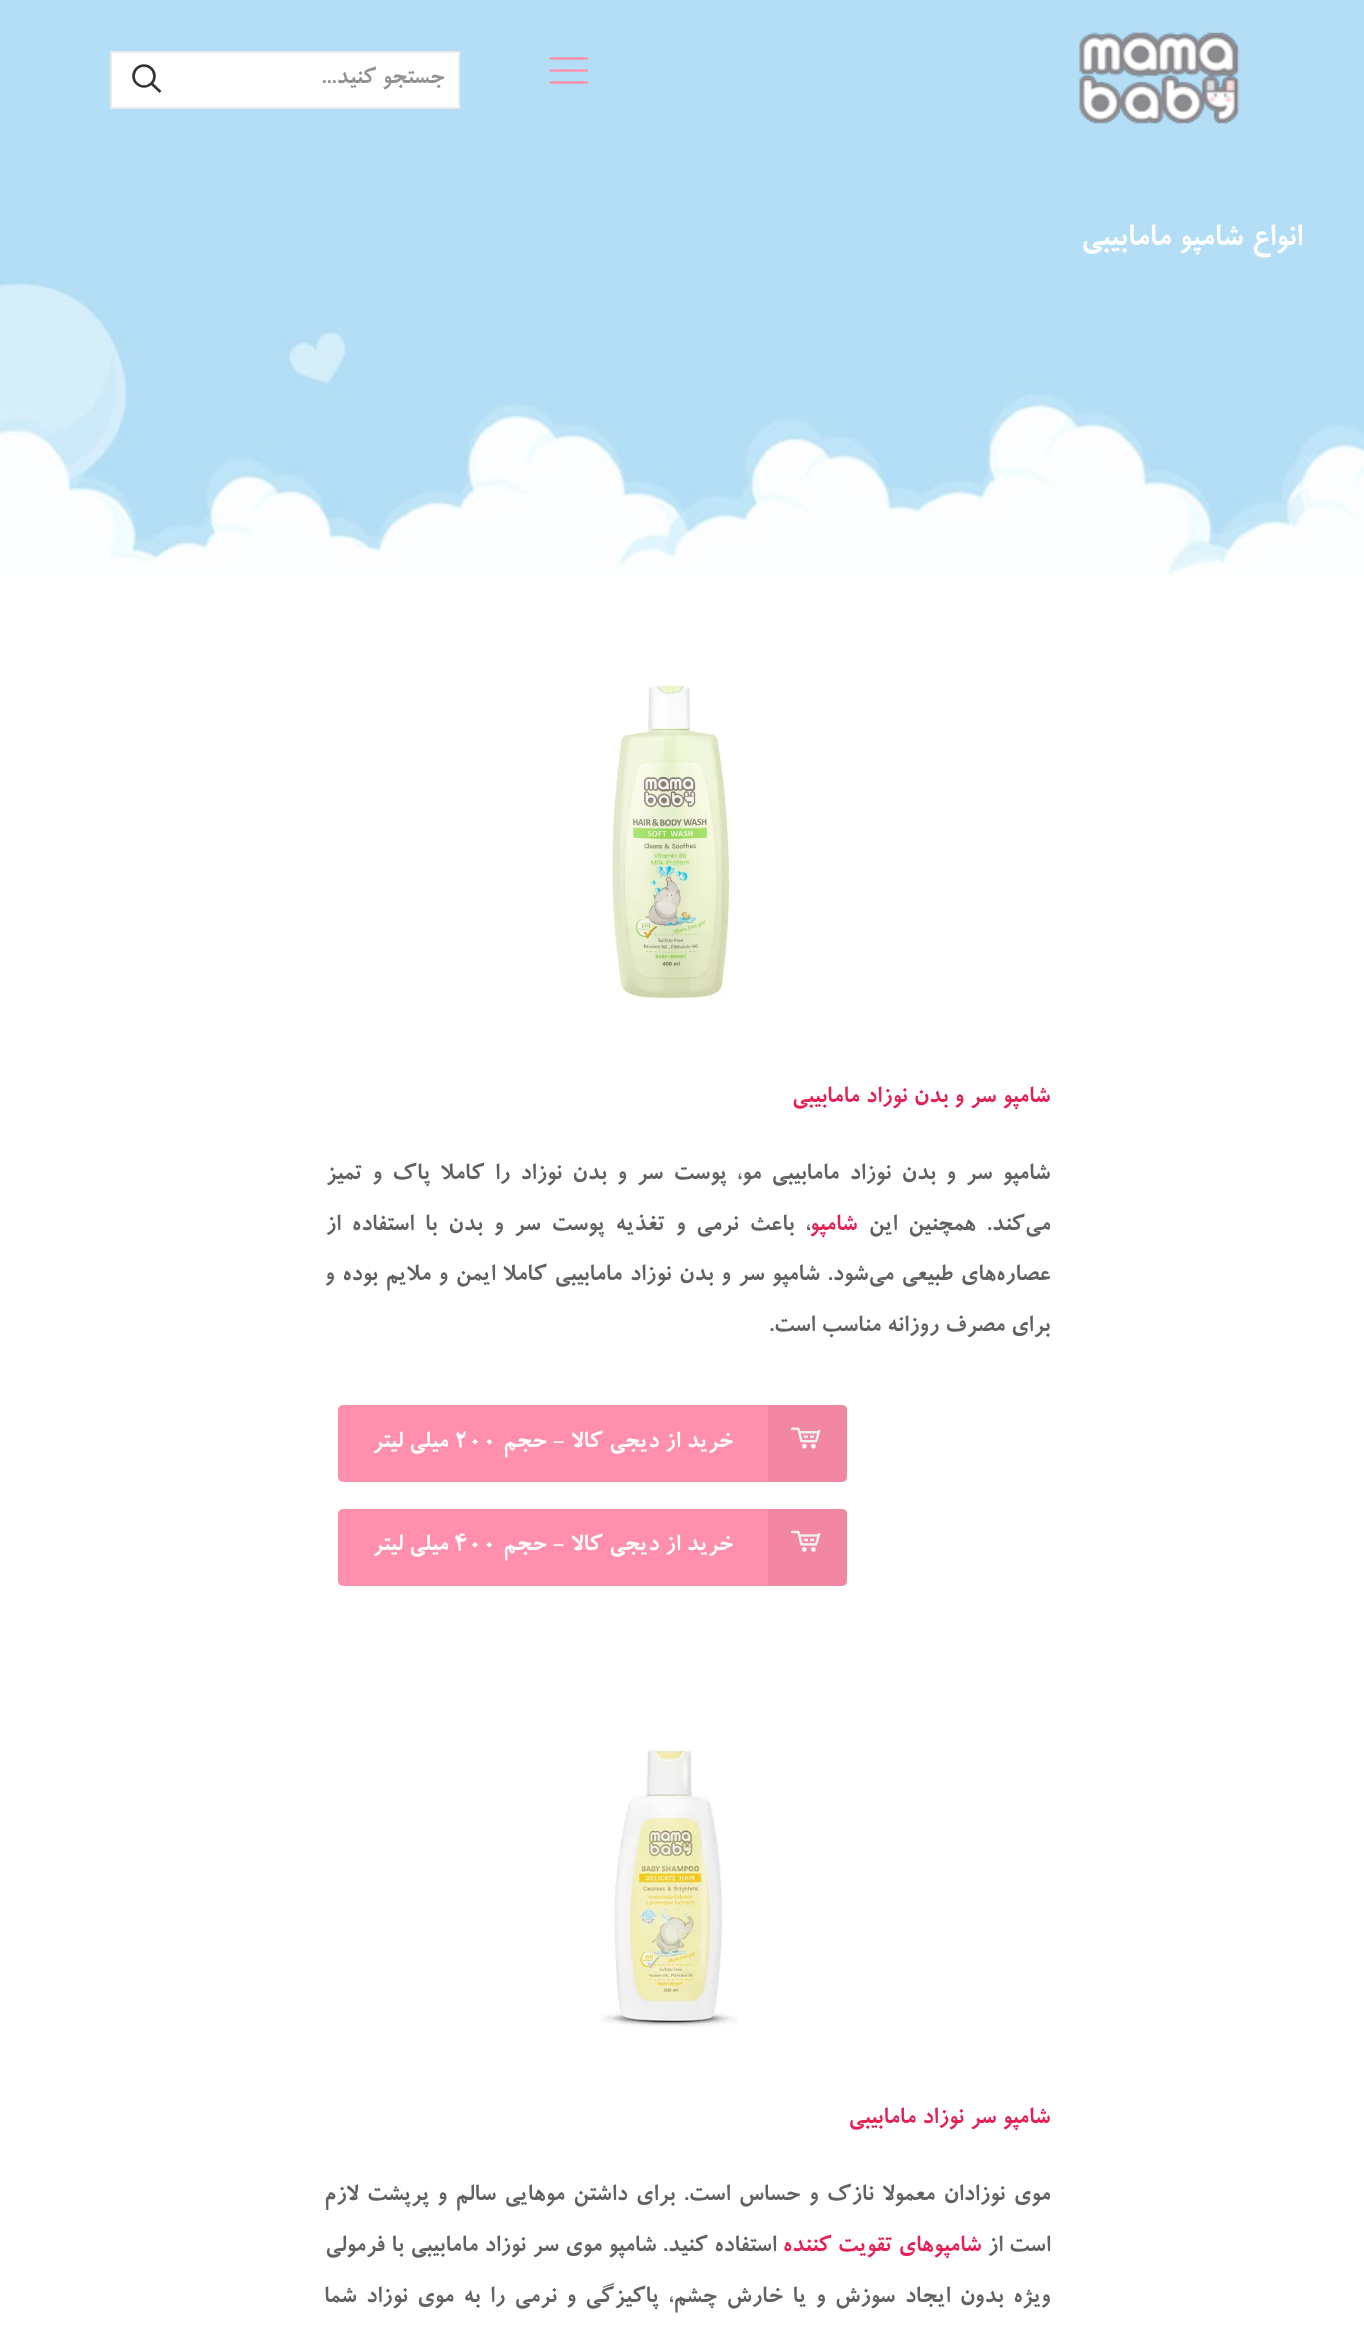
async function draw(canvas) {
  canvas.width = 1364
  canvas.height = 2352
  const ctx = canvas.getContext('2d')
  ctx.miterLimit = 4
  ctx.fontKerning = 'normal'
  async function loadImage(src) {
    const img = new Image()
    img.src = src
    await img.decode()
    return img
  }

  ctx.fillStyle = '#fff'
  ctx.fillRect(0, 0, 1364, 2352)
  ctx.drawImage(await loadImage('image0.png'), 0, 0, 1364, 576)
  ctx.drawImage(await loadImage('image1.png'), 1079, 31, 161, 93)
  ctx.drawImage(await loadImage('image2.png'), 549, 57, 39, 27)
  ctx.beginPath()
  ctx.rect(111, 52, 348, 56)
  ctx.fill()
  ctx.strokeStyle = '#ebebeb'
  ctx.lineWidth = 2
  ctx.stroke()
  ctx.direction = 'rtl'
  ctx.font = 'bold 26.25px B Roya'
  ctx.fillStyle = '#929292'
  ctx.fillText('جستجو کنید...', 444, 83)
  ctx.beginPath()
  ctx.arc(144, 76, 10.5, 0, 2 * Math.PI)
  ctx.strokeStyle = '#333'
  ctx.lineWidth = 2.6
  ctx.stroke()
  ctx.beginPath()
  ctx.moveTo(151.5, 83.5)
  ctx.lineTo(160.5, 92)
  ctx.stroke()
  ctx.font = 'bold 35px B Roya'
  ctx.fillStyle = '#fff'
  ctx.fillText('انواع شامپو مامابیبی', 1302, 245)
  ctx.drawImage(await loadImage('image3.png'), 612, 685, 118, 314)
  ctx.font = 'bold 26.25px B Roya'
  ctx.fillStyle = '#e42155'
  ctx.fillText('شامپو سر و بدن نوزاد مامابیبی', 1050, 1102)
  ctx.wordSpacing = '4.1px'
  ctx.fillStyle = '#626262'
  ctx.fillText('شامپو سر و بدن نوزاد مامابیبی مو، پوست سر و بدن نوزاد را کاملا پاک و تمیز', 1050, 1179)
  ctx.wordSpacing = '4.75px'
  ctx.fillText('می‌کند. همچنین این', 1050, 1230)
  ctx.wordSpacing = '0px'
  ctx.fillStyle = '#e42155'
  ctx.fillText('شامپو', 857, 1230)
  ctx.wordSpacing = '4.75px'
  ctx.fillStyle = '#626262'
  ctx.fillText('، باعث نرمی و تغذیه پوست سر و بدن با استفاده از', 810, 1230)
  ctx.wordSpacing = '1.4px'
  ctx.fillText('عصاره‌های طبیعی می‌شود. شامپو سر و بدن نوزاد مامابیبی کاملا ایمن و ملایم بوده و', 1050, 1280)
  ctx.wordSpacing = '0px'
  ctx.fillText('برای مصرف روزانه مناسب است.', 1050, 1331)
  ctx.fillStyle = '#ff8fac'
  ctx.beginPath()
  ctx.roundRect(338, 1405, 509, 77, 5)
  ctx.fill()
  ctx.drawImage(await loadImage('image4.png'), 791, 1427, 30, 22)
  ctx.fillStyle = '#0000000d'
  ctx.fillRect(768, 1405, 79, 77)
  ctx.fillStyle = '#fff'
  ctx.fillText('خرید از دیجی کالا - حجم', 733, 1447)
  ctx.direction = 'ltr'
  ctx.fillText('۲۰۰', 454, 1447)
  ctx.direction = 'rtl'
  ctx.fillText('میلی لیتر', 448, 1447)
  ctx.fillStyle = '#ff8fac'
  ctx.beginPath()
  ctx.roundRect(338, 1509, 509, 77, 5)
  ctx.fill()
  ctx.drawImage(await loadImage('image5.png'), 791, 1530, 30, 22)
  ctx.fillStyle = '#0000000d'
  ctx.fillRect(768, 1509, 79, 77)
  ctx.fillStyle = '#fff'
  ctx.fillText('خرید از دیجی کالا - حجم', 733, 1550)
  ctx.direction = 'ltr'
  ctx.fillText('۴۰۰', 454, 1550)
  ctx.direction = 'rtl'
  ctx.fillText('میلی لیتر', 448, 1550)
  ctx.drawImage(await loadImage('image6.png'), 600, 1749, 137, 278)
  ctx.fillStyle = '#e42155'
  ctx.fillText('شامپو سر نوزاد مامابیبی', 1050, 2123)
  ctx.wordSpacing = '2.25px'
  ctx.fillStyle = '#626262'
  ctx.fillText('موی نوزادان معمولا نازک و حساس است. برای داشتن موهایی سالم و پرپشت لازم', 1050, 2200)
  ctx.wordSpacing = '0px'
  ctx.fillText('است از', 1050, 2251)
  ctx.fillStyle = '#e42155'
  ctx.fillText('شامپوهای تقویت کننده', 981, 2251)
  ctx.wordSpacing = '0.25px'
  ctx.fillStyle = '#626262'
  ctx.fillText('استفاده کنید. شامپو موی سر نوزاد مامابیبی با فرمولی', 776, 2251)
  ctx.wordSpacing = '3.25px'
  ctx.fillText('ویژه بدون ایجاد سوزش و یا خارش چشم، پاکیزگی و نرمی را به موی نوزاد شما', 1050, 2302)
}

draw(document.querySelector('canvas'))
